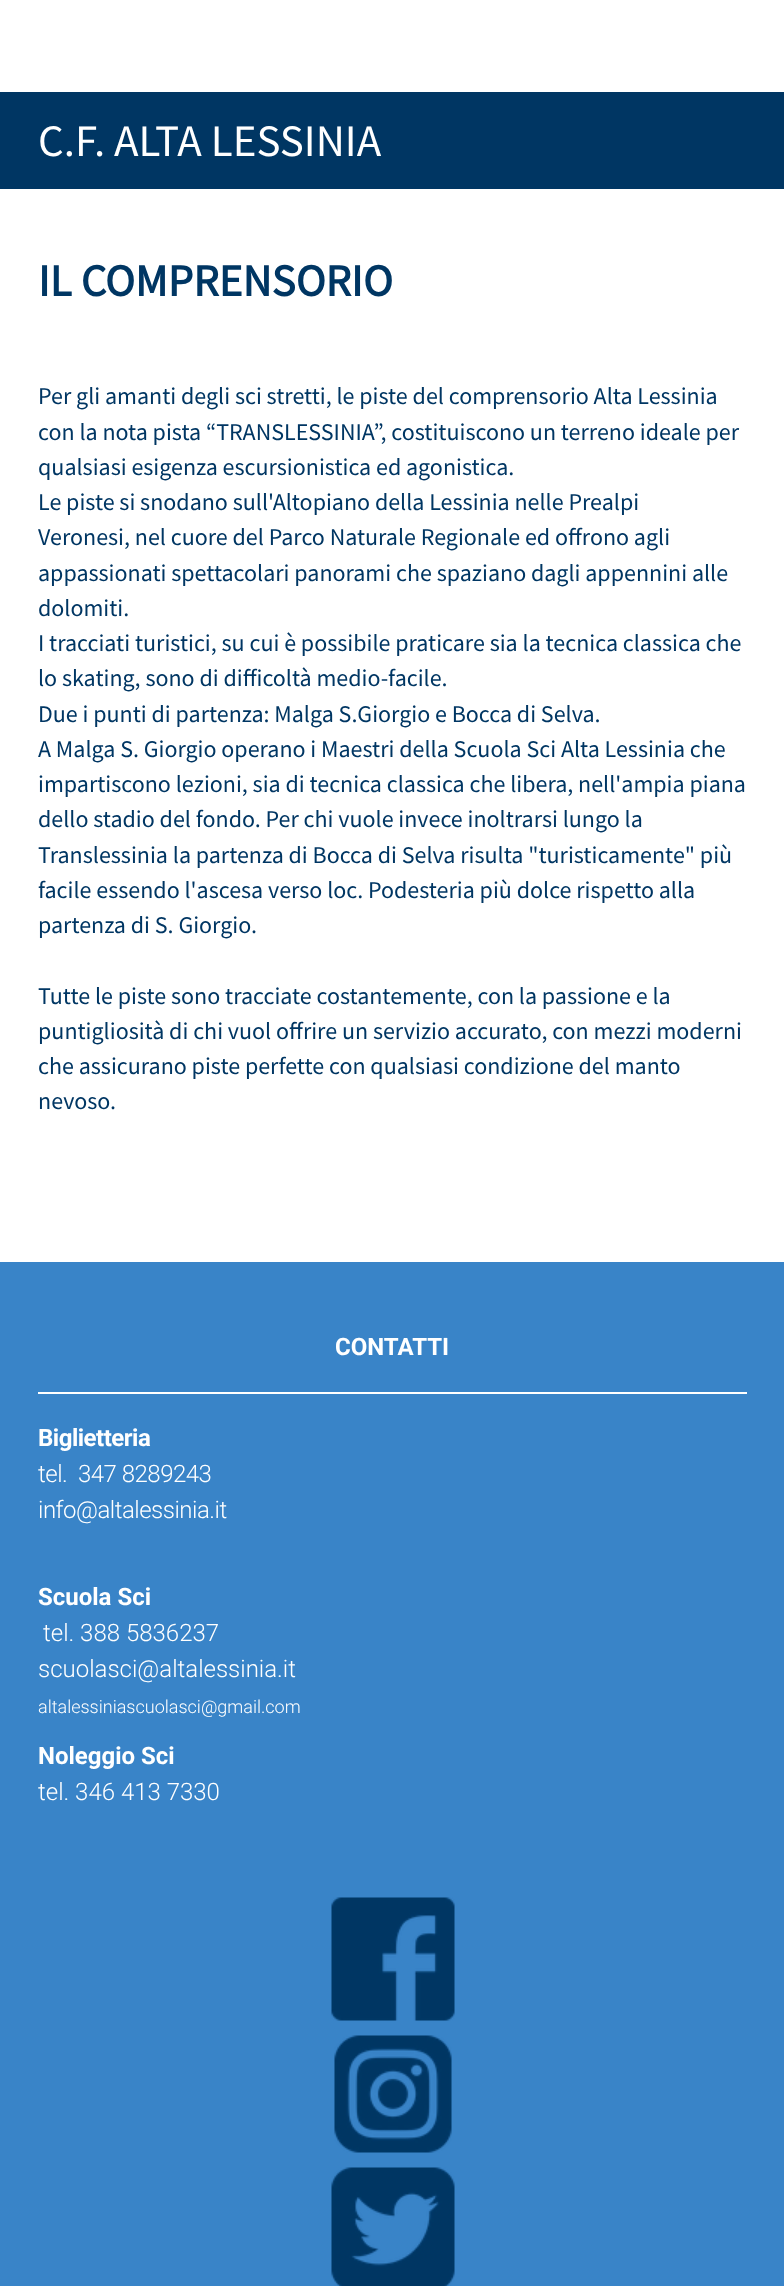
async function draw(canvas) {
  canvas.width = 784
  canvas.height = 2286
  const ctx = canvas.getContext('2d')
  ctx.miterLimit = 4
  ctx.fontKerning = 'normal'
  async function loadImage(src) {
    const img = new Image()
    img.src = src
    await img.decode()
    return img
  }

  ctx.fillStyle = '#fff'
  ctx.fillRect(0, 0, 784, 2286)
  ctx.fillStyle = '#003663'
  ctx.fillRect(0, 92, 784, 97)
  ctx.font = '45px Source Sans Pro'
  ctx.fillStyle = '#fff'
  ctx.fillText('C.F. ALTA LESSINIA', 38, 156)
  ctx.font = 'bold 45px Source Sans Pro'
  ctx.fillStyle = '#003663'
  ctx.fillText('IL COMPRENSORIO', 38, 296)
  ctx.font = '24px Source Sans Pro'
  ctx.fillText('Per gli amanti degli sci stretti, le piste del comprensorio Alta Lessinia', 38, 404)
  ctx.fillText('con la nota pista “TRANSLESSINIA”, costituiscono un terreno ideale per', 38, 440)
  ctx.fillText('qualsiasi esigenza escursionistica ed agonistica.', 38, 475)
  ctx.fillText('Le piste si snodano sull\'Altopiano della Lessinia nelle Prealpi', 38, 510)
  ctx.fillText('Veronesi, nel cuore del Parco Naturale Regionale ed offrono agli', 38, 545)
  ctx.fillText('appassionati spettacolari panorami che spaziano dagli appennini alle', 38, 581)
  ctx.fillText('dolomiti.', 38, 616)
  ctx.fillText('I tracciati turistici, su cui è possibile praticare sia la tecnica classica che', 38, 651)
  ctx.fillText('lo skating, sono di difficoltà medio-facile.', 38, 686)
  ctx.fillText('Due i punti di partenza: Malga S.Giorgio e Bocca di Selva.', 38, 722)
  ctx.fillText('A Malga S. Giorgio operano i Maestri della Scuola Sci Alta Lessinia che', 38, 757)
  ctx.fillText('impartiscono lezioni, sia di tecnica classica che libera, nell\'ampia piana', 38, 792)
  ctx.fillText('dello stadio del fondo. Per chi vuole invece inoltrarsi lungo la', 38, 827)
  ctx.fillText('Translessinia la partenza di Bocca di Selva risulta "turisticamente" più', 38, 863)
  ctx.fillText('facile essendo l\'ascesa verso loc. Podesteria più dolce rispetto alla', 38, 898)
  ctx.fillText('partenza di S. Giorgio.', 38, 933)
  ctx.fillText('Tutte le piste sono tracciate costantemente, con la passione e la', 38, 1004)
  ctx.fillText('puntigliosità di chi vuol offrire un servizio accurato, con mezzi moderni', 38, 1039)
  ctx.fillText('che assicurano piste perfette con qualsiasi condizione del manto', 38, 1074)
  ctx.fillText('nevoso.', 38, 1109)
  ctx.fillStyle = '#3984c8'
  ctx.fillRect(0, 1262, 784, 1024)
  ctx.font = 'bold 24px Roboto'
  ctx.fillStyle = '#fff'
  ctx.fillText('CONTATTI', 335, 1355)
  ctx.fillRect(38, 1392, 709, 2)
  ctx.letterSpacing = '-0.5px'
  ctx.fillText('Biglietteria', 38, 1446)
  ctx.font = '300 24px Roboto'
  ctx.fillText('tel.  347 8289243', 38, 1482)
  ctx.fillText('info@altalessinia.it', 38, 1518)
  ctx.letterSpacing = '0px'
  ctx.font = 'bold 24px Roboto'
  ctx.fillText('Scuola Sci', 38, 1605)
  ctx.font = '300 24px Roboto'
  ctx.fillText('tel. 388 5836237', 43, 1641)
  ctx.fillText('scuolasci@altalessinia.it', 38, 1677)
  ctx.font = '300 18px Roboto'
  ctx.fillText('altalessiniascuolasci@gmail.com', 38, 1713)
  ctx.font = 'bold 24px Roboto'
  ctx.fillText('Noleggio Sci', 38, 1764)
  ctx.font = '300 24px Roboto'
  ctx.fillText('tel. 346 413 7330', 38, 1800)
  ctx.drawImage(await loadImage('image0.png'), 331, 1897, 124, 124)
  ctx.drawImage(await loadImage('image1.png'), 334, 2035, 118, 118)
  ctx.drawImage(await loadImage('image2.png'), 331, 2167, 124, 119)
}

draw(document.querySelector('canvas'))
